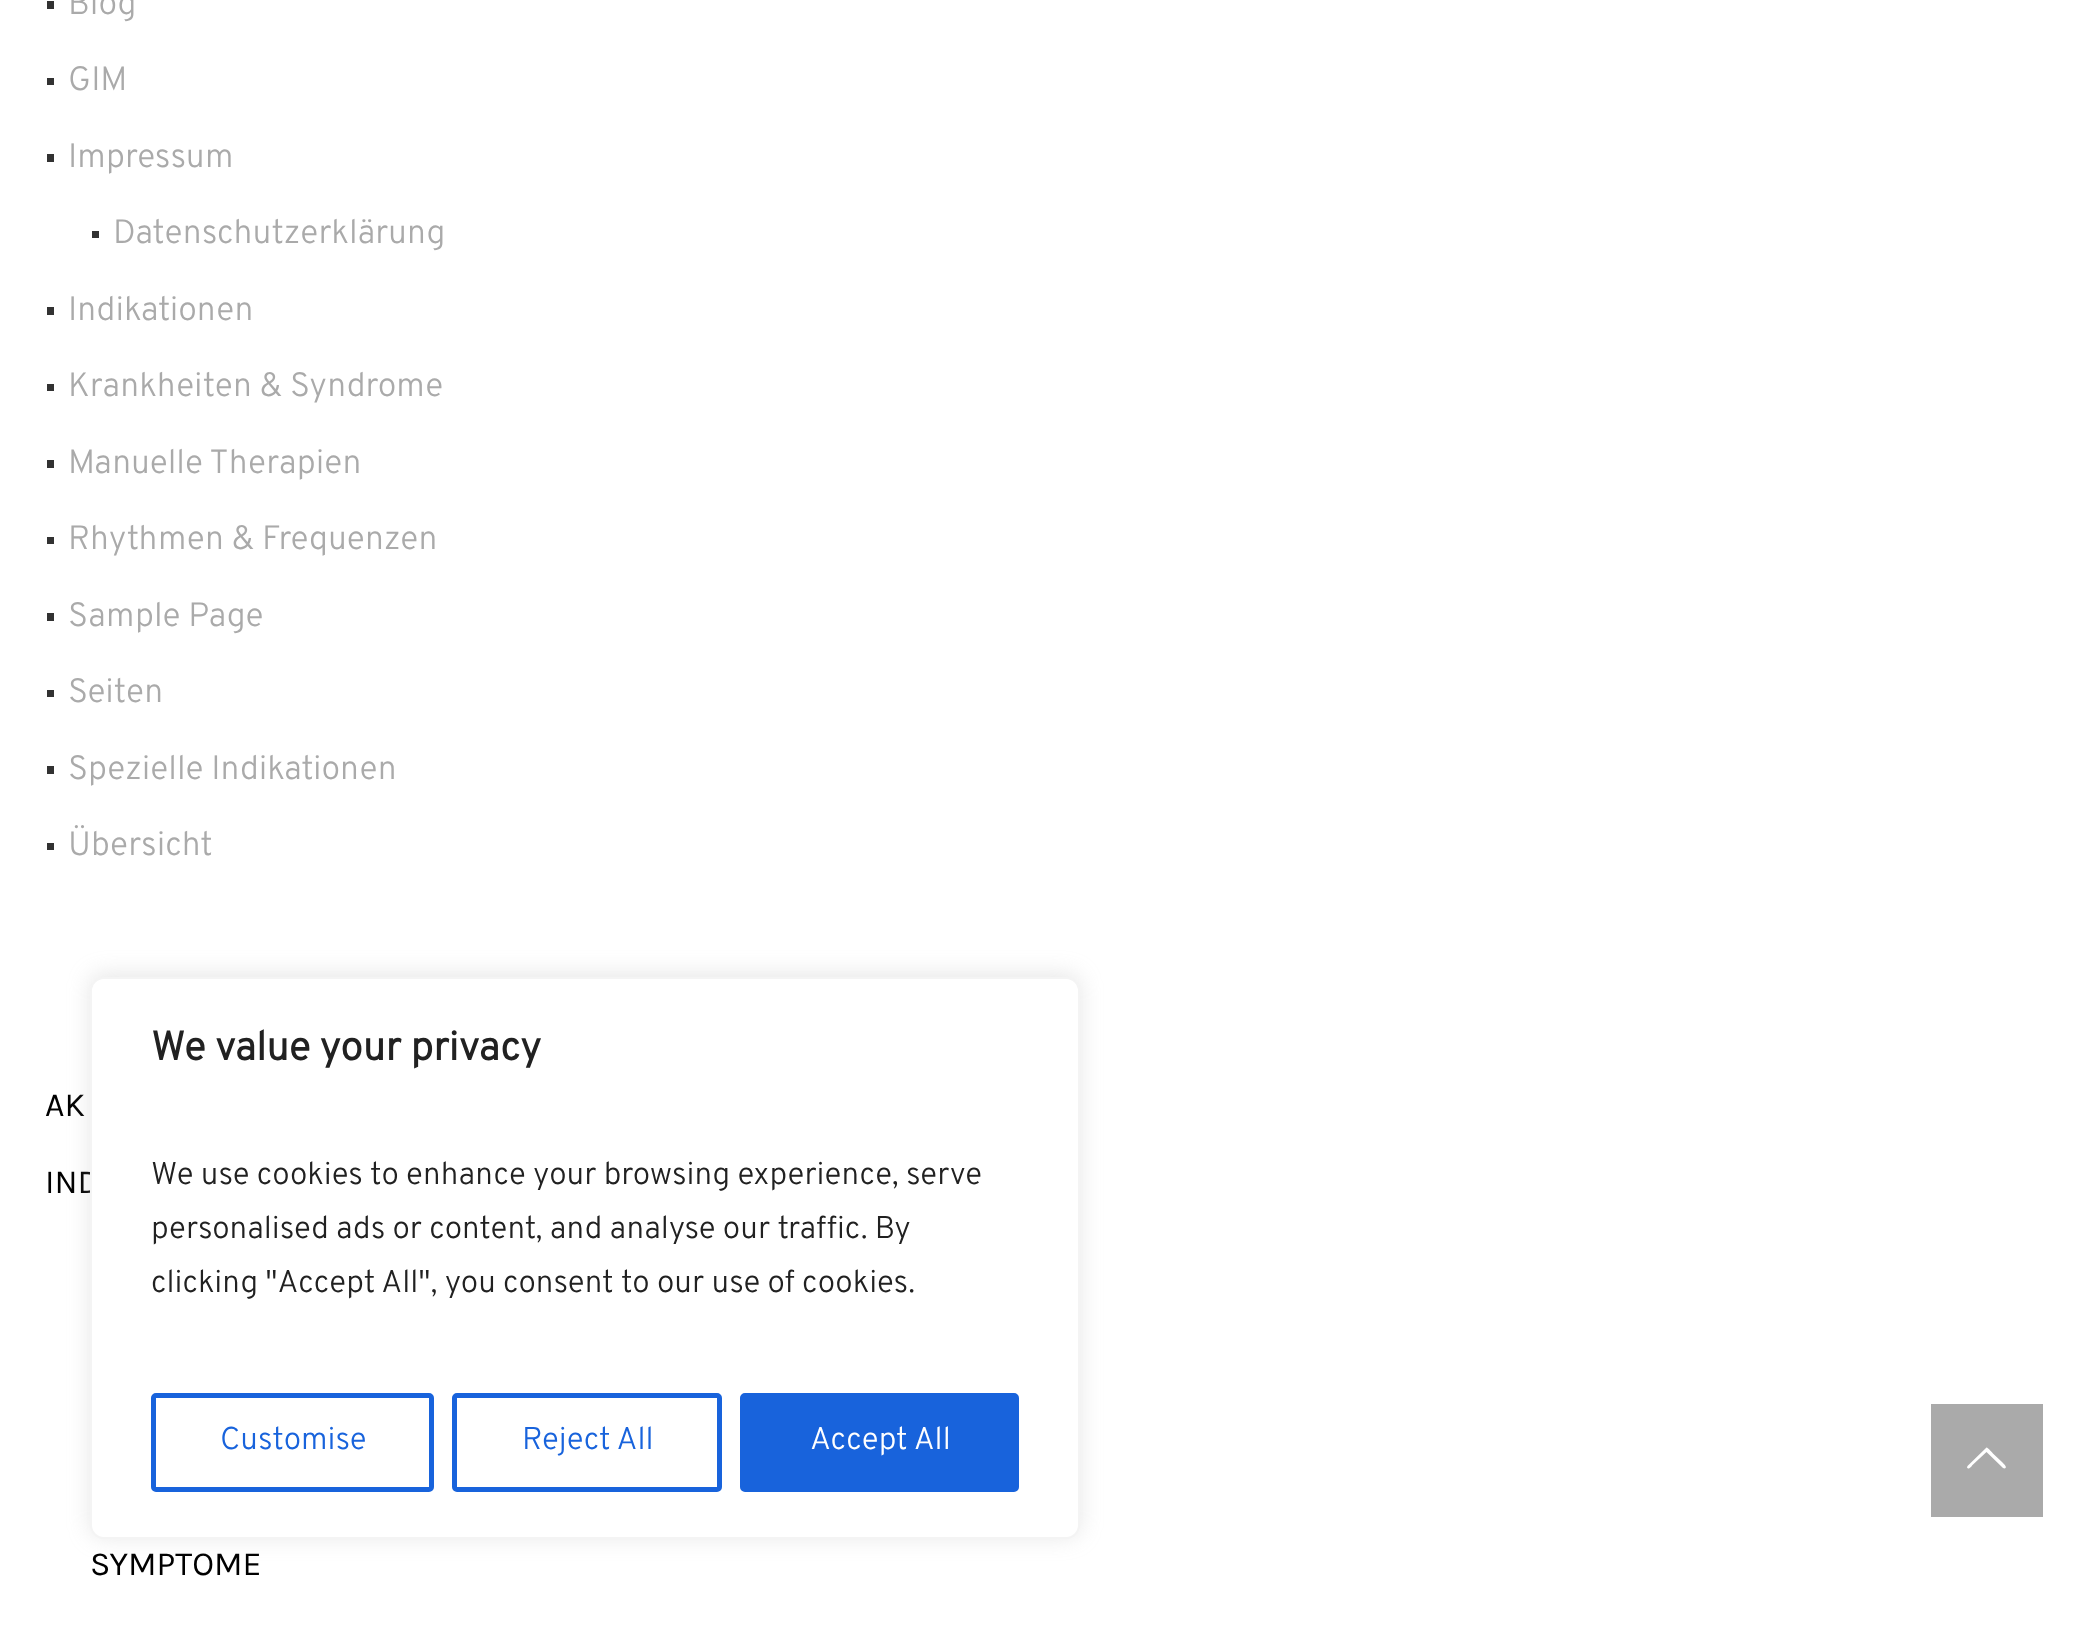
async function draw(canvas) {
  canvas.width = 2086
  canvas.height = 1627
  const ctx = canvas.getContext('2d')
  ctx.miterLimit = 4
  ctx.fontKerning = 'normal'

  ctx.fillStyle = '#fff'
  ctx.fillRect(0, 0, 2086, 1627)
  ctx.fillStyle = '#323232'
  ctx.fillRect(47, 1, 7, 8)
  ctx.font = '300 33.75px Overpass'
  ctx.fillStyle = '#aaa'
  ctx.fillText('Blog', 68, 14)
  ctx.fillStyle = '#323232'
  ctx.fillRect(47, 78, 7, 7)
  ctx.fillStyle = '#aaa'
  ctx.fillText('GIM', 68, 90)
  ctx.fillStyle = '#323232'
  ctx.fillRect(47, 154, 7, 8)
  ctx.fillStyle = '#aaa'
  ctx.fillText('Impressum', 68, 167)
  ctx.fillStyle = '#323232'
  ctx.fillRect(92, 231, 7, 7)
  ctx.fillStyle = '#aaa'
  ctx.fillText('Datenschutzerklärung', 113, 243)
  ctx.fillStyle = '#323232'
  ctx.fillRect(47, 307, 7, 8)
  ctx.fillStyle = '#aaa'
  ctx.fillText('Indikationen', 68, 320)
  ctx.fillStyle = '#323232'
  ctx.fillRect(47, 384, 7, 7)
  ctx.fillStyle = '#aaa'
  ctx.fillText('Krankheiten & Syndrome', 68, 396)
  ctx.fillStyle = '#323232'
  ctx.fillRect(47, 460, 7, 8)
  ctx.fillStyle = '#aaa'
  ctx.fillText('Manuelle Therapien', 68, 473)
  ctx.fillStyle = '#323232'
  ctx.fillRect(47, 537, 7, 7)
  ctx.fillStyle = '#aaa'
  ctx.fillText('Rhythmen & Frequenzen', 68, 549)
  ctx.fillStyle = '#323232'
  ctx.fillRect(47, 613, 7, 8)
  ctx.fillStyle = '#aaa'
  ctx.fillText('Sample Page', 68, 626)
  ctx.fillStyle = '#323232'
  ctx.fillRect(47, 690, 7, 7)
  ctx.fillStyle = '#aaa'
  ctx.fillText('Seiten', 68, 702)
  ctx.fillStyle = '#323232'
  ctx.fillRect(47, 766, 7, 8)
  ctx.fillStyle = '#aaa'
  ctx.fillText('Spezielle Indikationen', 68, 779)
  ctx.fillStyle = '#323232'
  ctx.fillRect(47, 843, 7, 7)
  ctx.fillStyle = '#aaa'
  ctx.fillText('Übersicht', 68, 855)
  ctx.font = '33.75px Karla'
  ctx.fillStyle = '#000'
  ctx.fillText('AK', 45, 1116)
  ctx.fillText('IND', 45, 1193)
  ctx.fillText('SYMPTOME', 90, 1575)
  ctx.fillStyle = '#aaa'
  ctx.fillRect(1931, 1404, 112, 113)
  ctx.fillStyle = '#fff'
  ctx.beginPath()
  ctx.moveTo(2003, 1468)
  ctx.lineTo(1986.5, 1452)
  ctx.lineTo(1972.5, 1465)
  ctx.bezierCurveTo(1972, 1466, 1968.5, 1470.5, 1967, 1467.5)
  ctx.lineTo(1967.5, 1466)
  ctx.lineTo(1986.5, 1447.5)
  ctx.bezierCurveTo(1987.5, 1447, 1992.5, 1453, 1993.5, 1454)
  ctx.lineTo(2002.5, 1462.5)
  ctx.bezierCurveTo(2002.5, 1463, 2008.5, 1467.5, 2004.5, 1468.5)
  ctx.closePath()
  ctx.fill()
  ctx.fillStyle = '#acabab4d'
  ctx.filter = 'blur(11px)'
  ctx.beginPath()
  ctx.roundRect(90, 974, 990, 563, 14)
  ctx.fill()
  ctx.filter = 'none'
  ctx.fillStyle = '#fff'
  ctx.beginPath()
  ctx.roundRect(91, 978, 988, 560, 13)
  ctx.fill()
  ctx.strokeStyle = '#f4f4f4'
  ctx.lineWidth = 2
  ctx.stroke()
  ctx.font = 'bold 40.5px Overpass'
  ctx.fillStyle = '#212121'
  ctx.fillText('We value your privacy', 151, 1060)
  ctx.font = '300 31.5px Overpass'
  ctx.fillText('We use cookies to enhance your browsing experience, serve', 151, 1184)
  ctx.fillText('personalised ads or content, and analyse our traffic. By', 151, 1238)
  ctx.fillText('clicking "Accept All", you consent to our use of cookies.', 151, 1292)
  ctx.beginPath()
  ctx.roundRect(153.5, 1395.5, 278, 94, 2.5)
  ctx.strokeStyle = '#1863dc'
  ctx.lineWidth = 5
  ctx.stroke()
  ctx.fillStyle = '#1863dc'
  ctx.fillText('Customise', 220, 1449)
  ctx.beginPath()
  ctx.roundRect(454.5, 1395.5, 265, 94, 2.5)
  ctx.stroke()
  ctx.fillText('Reject All', 522, 1449)
  ctx.beginPath()
  ctx.roundRect(742.5, 1395.5, 274, 94, 2.5)
  ctx.fill()
  ctx.stroke()
  ctx.fillStyle = '#fff'
  ctx.fillText('Accept All', 810, 1449)
}

draw(document.querySelector('canvas'))
